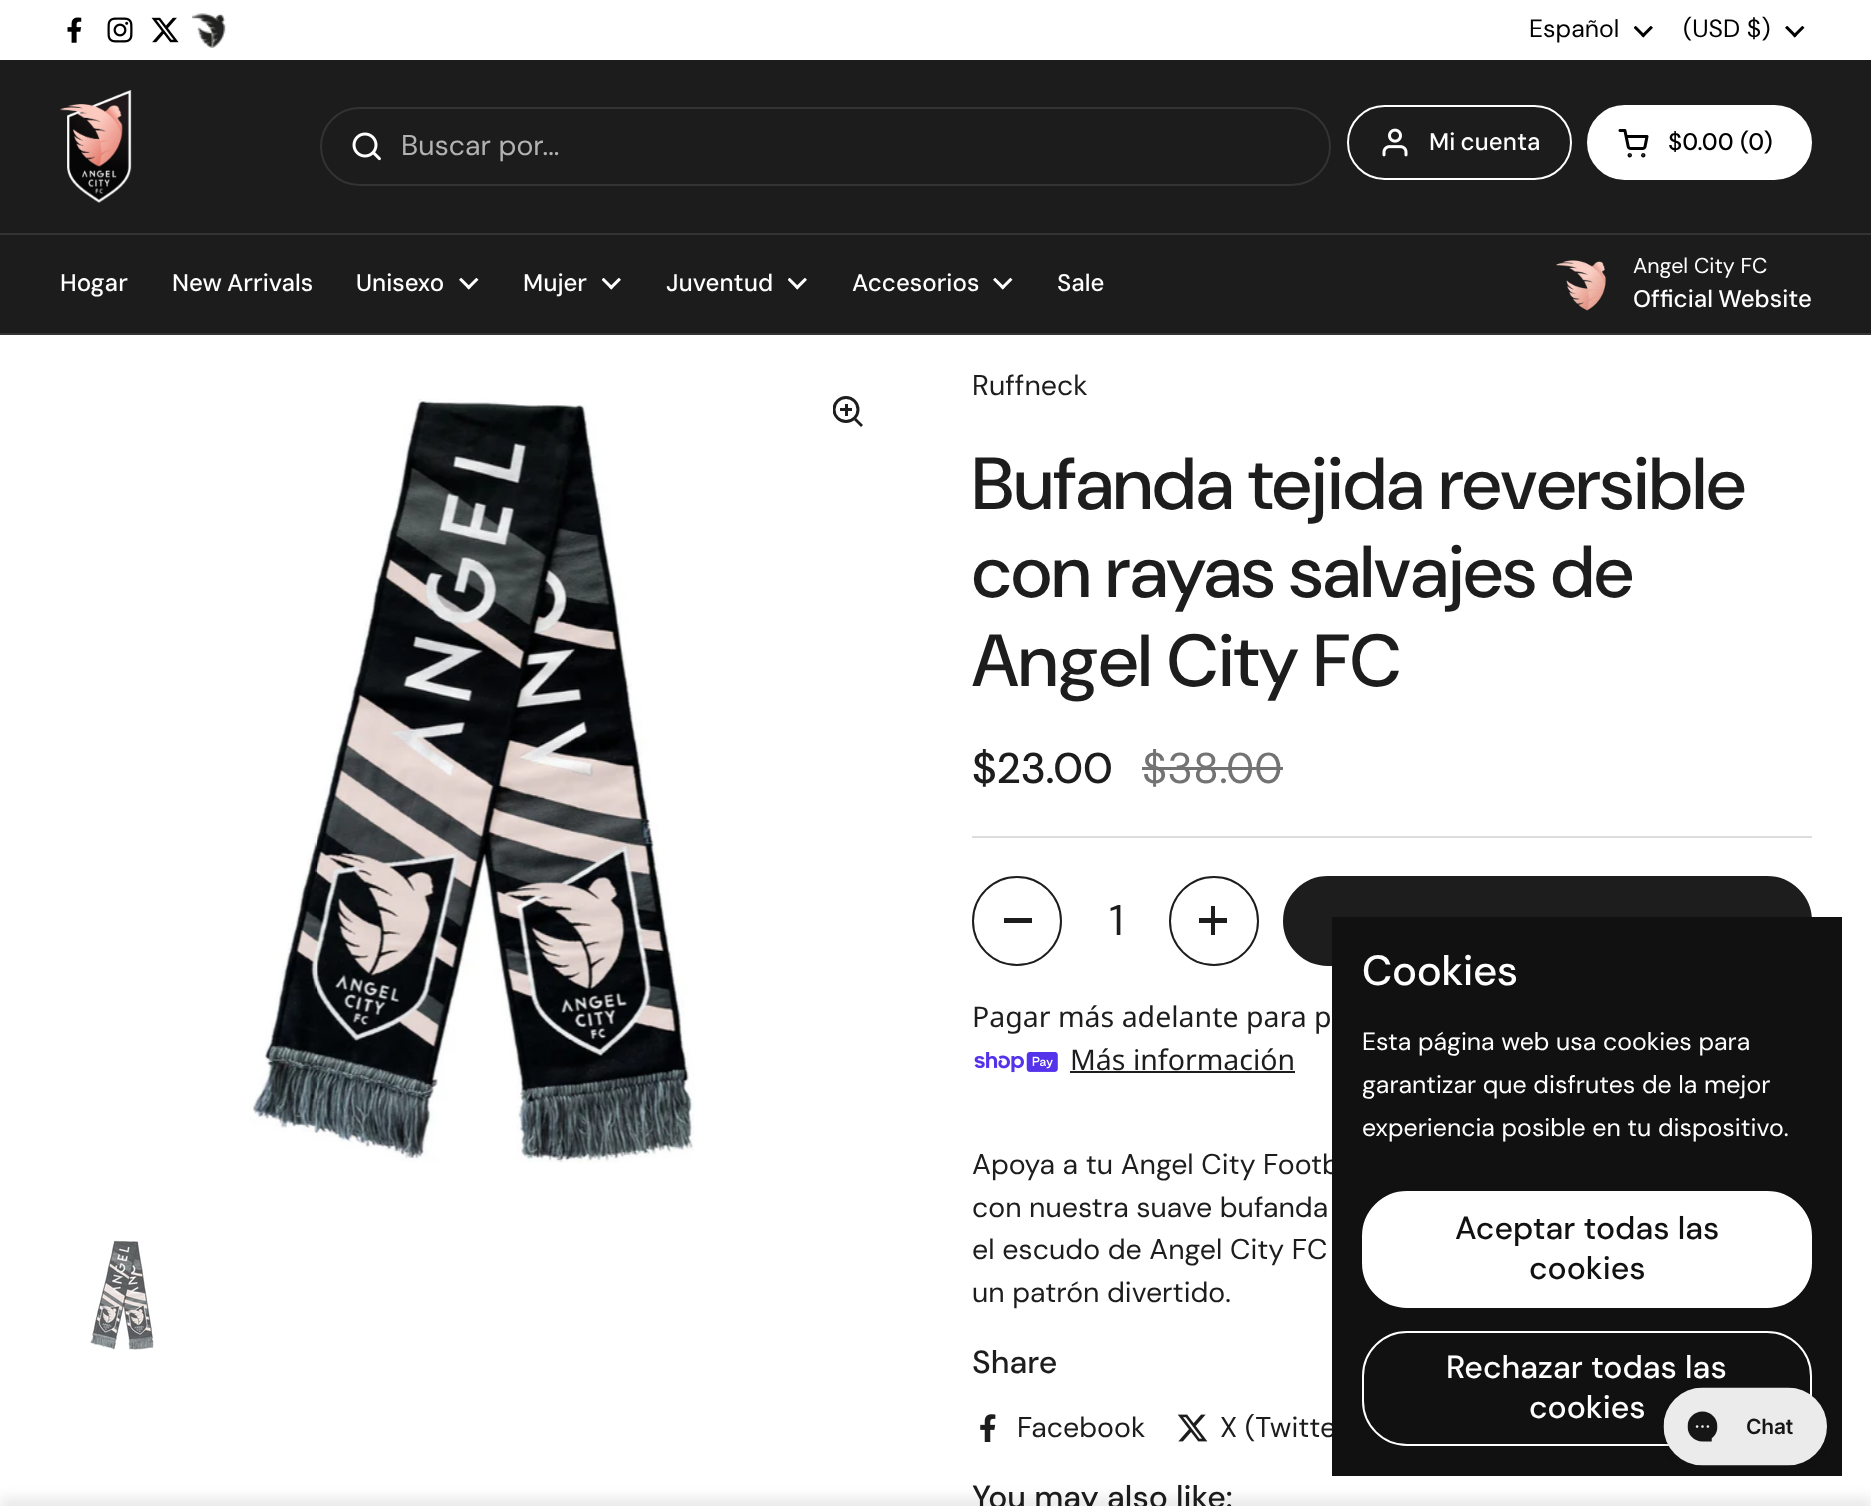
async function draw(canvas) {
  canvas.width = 1871
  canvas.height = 1506
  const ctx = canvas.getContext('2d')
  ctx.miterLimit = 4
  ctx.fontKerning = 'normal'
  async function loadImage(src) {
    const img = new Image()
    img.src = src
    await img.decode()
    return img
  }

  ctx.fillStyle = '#fff'
  ctx.fillRect(0, 0, 1871, 1506)
  ctx.drawImage(await loadImage('image0.png'), 67, 17, 15, 26)
  ctx.drawImage(await loadImage('image1.png'), 107, 17, 26, 26)
  ctx.drawImage(await loadImage('image2.png'), 151, 17, 28, 26)
  ctx.drawImage(await loadImage('image3.png'), 192, 13, 34, 35)
  ctx.font = '24.9px DM Sans'
  ctx.fillStyle = '#000'
  ctx.fillText('Español', 1529, 37)
  ctx.drawImage(await loadImage('image4.png'), 1634, 26, 19, 12)
  ctx.fillText('(USD $)', 1683, 37)
  ctx.drawImage(await loadImage('image5.png'), 1785, 26, 20, 12)
  ctx.fillStyle = '#1c1c1c'
  ctx.fillRect(0, 60, 1871, 273)
  ctx.fillStyle = '#333'
  ctx.fillRect(0, 233, 1871, 2)
  ctx.drawImage(await loadImage('image6.png'), 60, 90, 72, 113)
  ctx.beginPath()
  ctx.roundRect(321, 108, 1009, 77, 38.5)
  ctx.strokeStyle = '#333'
  ctx.lineWidth = 2
  ctx.stroke()
  ctx.drawImage(await loadImage('image7.png'), 352, 132, 29, 29)
  ctx.font = '28.5px "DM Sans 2"'
  ctx.fillStyle = '#b2b2b2'
  ctx.fillText('Buscar por...', 401, 155)
  ctx.beginPath()
  ctx.roundRect(1348, 106, 223, 73, 36.5)
  ctx.strokeStyle = '#fff'
  ctx.stroke()
  ctx.drawImage(await loadImage('image8.png'), 1382, 128, 26, 29)
  ctx.wordSpacing = '-1px'
  ctx.font = '500 24px "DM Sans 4"'
  ctx.fillStyle = '#fff'
  ctx.fillText('Mi cuenta', 1429, 150)
  ctx.beginPath()
  ctx.roundRect(1588, 106, 223, 73, 36.5)
  ctx.fill()
  ctx.stroke()
  ctx.drawImage(await loadImage('image9.png'), 1618, 129, 31, 29)
  ctx.wordSpacing = '0px'
  ctx.fillStyle = '#000'
  ctx.fillText('$0.00', 1668, 150)
  ctx.fillText('(0)', 1740, 150)
  ctx.fillStyle = '#333'
  ctx.fillRect(0, 333, 1871, 2)
  ctx.fillStyle = '#fff'
  ctx.fillText('Hogar', 60, 291)
  ctx.wordSpacing = '-1px'
  ctx.fillText('New Arrivals', 172, 291)
  ctx.wordSpacing = '0px'
  ctx.fillText('Unisexo', 356, 291)
  ctx.drawImage(await loadImage('image10.png'), 459, 278, 20, 12)
  ctx.fillText('Mujer', 523, 291)
  ctx.drawImage(await loadImage('image11.png'), 602, 278, 19, 12)
  ctx.fillText('Juventud', 666, 291)
  ctx.drawImage(await loadImage('image11.png'), 788, 278, 19, 12)
  ctx.fillText('Accesorios', 852, 291)
  ctx.drawImage(await loadImage('image10.png'), 993, 278, 20, 12)
  ctx.fillText('Sale', 1057, 291)
  ctx.drawImage(await loadImage('image12.png'), 1556, 260, 50, 51)
  ctx.font = '21.5px "DM Sans 4"'
  ctx.fillText('Angel City FC', 1633, 273)
  ctx.wordSpacing = '-1px'
  ctx.font = '500 24px "DM Sans 4"'
  ctx.fillText('Official Website', 1633, 307)
  ctx.drawImage(await loadImage('image13.png'), 249, 399, 446, 764)
  ctx.save()
  ctx.beginPath()
  ctx.rect(833, 396, 31, 32)
  ctx.clip()
  ctx.beginPath()
  ctx.arc(846, 409.5, 12, 0, 2 * Math.PI)
  ctx.strokeStyle = '#1d1d1d'
  ctx.lineWidth = 3
  ctx.stroke()
  ctx.restore()
  ctx.fillStyle = '#1d1d1d'
  ctx.fillRect(845, 404, 3, 12)
  ctx.fillRect(840, 408, 12, 3)
  ctx.beginPath()
  ctx.moveTo(854, 420)
  ctx.lineTo(856, 418)
  ctx.lineTo(863, 425)
  ctx.lineTo(861, 427)
  ctx.closePath()
  ctx.fill()
  ctx.drawImage(await loadImage('image14.png'), 90, 1240, 64, 110)
  ctx.wordSpacing = '0px'
  ctx.font = '28.5px "DM Sans 2"'
  ctx.fillText('Ruffneck', 972, 395)
  ctx.font = '500 73.5px DM Sans'
  ctx.fillText('Bufanda tejida reversible', 972, 509)
  ctx.fillText('con rayas salvajes de', 972, 597)
  ctx.fillText('Angel City FC', 972, 686)
  ctx.font = '500 43px "DM Sans 2"'
  ctx.fillText('$23.00', 972, 783)
  ctx.font = '43px "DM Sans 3"'
  ctx.fillStyle = '#737373'
  ctx.fillText('$38.00', 1142, 783)
  ctx.fillRect(1142, 767, 141, 3)
  ctx.fillStyle = '#ddd'
  ctx.fillRect(972, 836, 840, 2)
  ctx.beginPath()
  ctx.arc(1017, 921, 44, 0, 2 * Math.PI)
  ctx.strokeStyle = '#1d1d1d'
  ctx.stroke()
  ctx.fillStyle = '#1d1d1d'
  ctx.fillRect(1004, 918, 28, 5)
  ctx.fillText('1', 1109, 935)
  ctx.beginPath()
  ctx.arc(1214, 921, 44, 0, 2 * Math.PI)
  ctx.stroke()
  ctx.fillRect(1211, 906, 4, 29)
  ctx.fillRect(1199, 918, 28, 5)
  ctx.beginPath()
  ctx.roundRect(1284, 877, 527, 88, 44)
  ctx.fill()
  ctx.stroke()
  ctx.font = '28.5px Noto Sans'
  ctx.fillText('Pagar más adelante para p', 972, 1027)
  ctx.drawImage(await loadImage('image15.png'), 974, 1052, 84, 21)
  ctx.fillText('Más información', 1070, 1070)
  ctx.fillRect(1070, 1071, 225, 2)
  ctx.font = '28.5px "DM Sans 2"'
  ctx.fillText('Apoya a tu Angel City Footb', 972, 1174)
  ctx.fillText('con nuestra suave bufanda', 972, 1217)
  ctx.fillText('el escudo de Angel City FC', 972, 1259)
  ctx.fillText('un patrón divertido.', 972, 1302)
  ctx.font = '500 32px "DM Sans 3"'
  ctx.fillText('Share', 972, 1373)
  ctx.drawImage(await loadImage('image16.png'), 980, 1414, 16, 28)
  ctx.font = '28.5px "DM Sans 2"'
  ctx.fillText('Facebook', 1017, 1437)
  ctx.drawImage(await loadImage('image17.png'), 1177, 1414, 31, 28)
  ctx.fillText('X (Twitte', 1220, 1437)
  ctx.font = '500 32px "DM Sans 3"'
  ctx.fillText('You may also like:', 972, 1508)
  ctx.fillStyle = '#111'
  ctx.fillRect(1332, 917, 510, 559)
  ctx.font = '500 42px "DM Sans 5"'
  ctx.fillStyle = '#fff'
  ctx.fillText('Cookies', 1362, 985)
  ctx.font = '24.9px DM Sans'
  ctx.fillText('Esta página web usa cookies para', 1362, 1050)
  ctx.fillText('garantizar que disfrutes de la mejor', 1362, 1093)
  ctx.fillText('experiencia posible en tu dispositivo.', 1362, 1136)
  ctx.beginPath()
  ctx.roundRect(1363, 1192, 448, 115, 44)
  ctx.fill()
  ctx.strokeStyle = '#fff'
  ctx.stroke()
  ctx.font = '500 32px "DM Sans 3"'
  ctx.fillStyle = '#111'
  ctx.fillText('Aceptar todas las', 1455, 1239)
  ctx.fillText('cookies', 1529, 1279)
  ctx.beginPath()
  ctx.roundRect(1363, 1332, 448, 113, 44)
  ctx.stroke()
  ctx.fillStyle = '#fff'
  ctx.fillText('Rechazar todas las', 1446, 1378)
  ctx.fillText('cookies', 1529, 1418)
  ctx.drawImage(await loadImage('image18.png'), 1663, 1387, 164, 79)
  ctx.fillStyle = '#00000014'
  ctx.filter = 'blur(6px)'
  ctx.beginPath()
  ctx.rect(0, 1497, 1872, 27)
  ctx.fill()
  ctx.filter = 'none'
}

draw(document.querySelector('canvas'))
